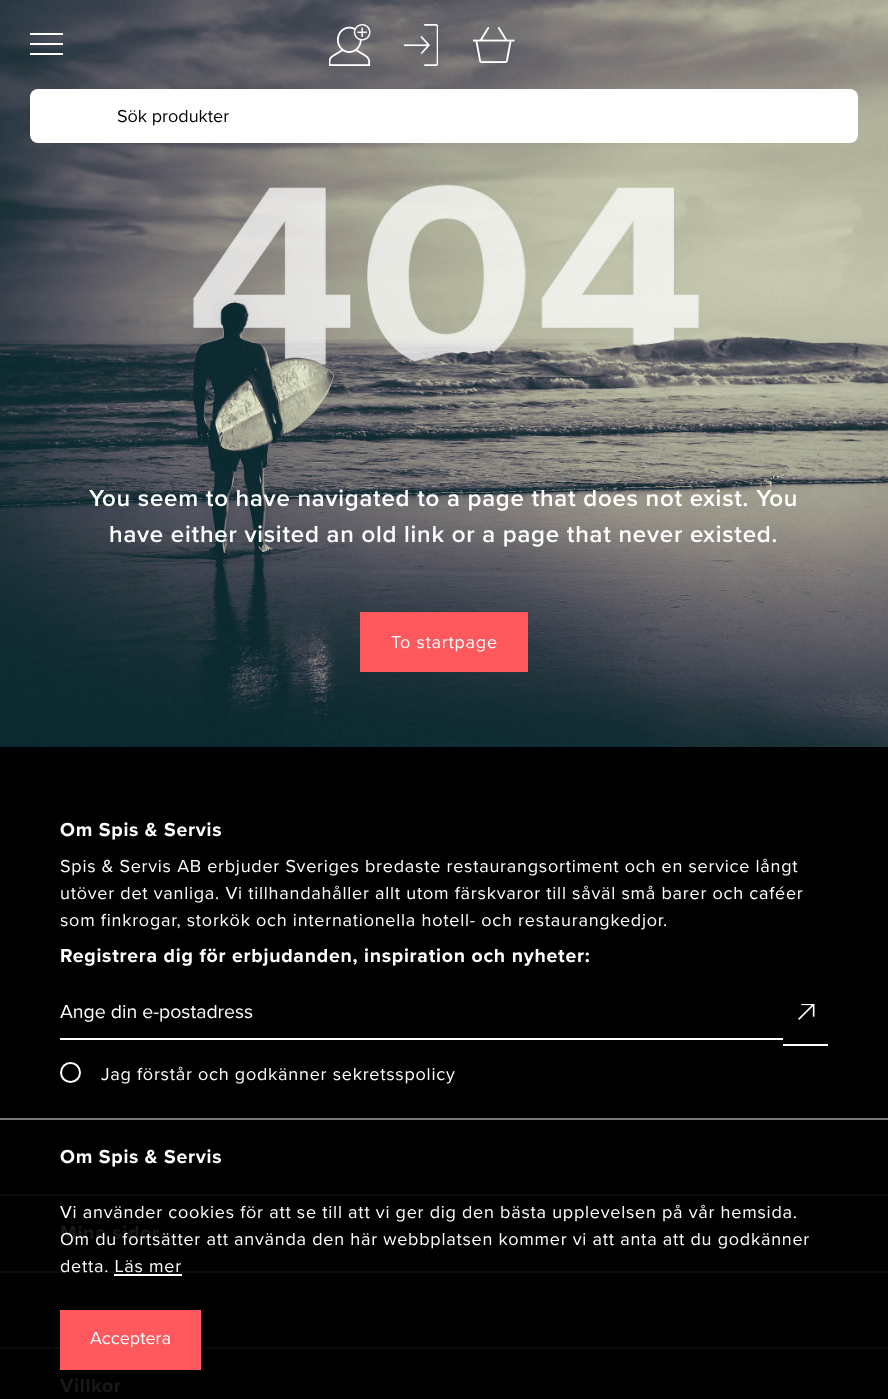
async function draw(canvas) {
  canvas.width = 888
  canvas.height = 1399
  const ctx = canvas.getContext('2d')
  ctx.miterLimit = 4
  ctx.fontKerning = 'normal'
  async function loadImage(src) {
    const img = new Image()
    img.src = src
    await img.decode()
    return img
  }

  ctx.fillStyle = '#fff'
  ctx.fillRect(0, 0, 888, 1399)
  ctx.drawImage(await loadImage('image0.png'), 0, 0, 888, 747)
  ctx.fillRect(30, 33, 33, 2)
  ctx.fillRect(30, 43, 33, 2)
  ctx.fillRect(30, 53, 33, 2)
  ctx.drawImage(await loadImage('image1.png'), 329, 24, 42, 42)
  ctx.drawImage(await loadImage('image2.png'), 404, 24, 34, 42)
  ctx.drawImage(await loadImage('image3.png'), 473, 27, 42, 36)
  ctx.beginPath()
  ctx.roundRect(30, 89, 57, 54, [8, 0, 0, 8])
  ctx.fill()
  ctx.beginPath()
  ctx.roundRect(87, 89, 771, 54, [0, 8, 8, 0])
  ctx.fill()
  ctx.font = '18px Proxima Nova'
  ctx.fillStyle = '#000'
  ctx.fillText('Sök produkter', 117, 122)
  ctx.letterSpacing = '0.75px'
  ctx.font = '600 24px Proxima Nova'
  ctx.fillStyle = '#fff'
  ctx.fillText('You seem to have navigated to a page that does not exist. You', 89, 506)
  ctx.fillText('have either visited an old link or a page that never existed.', 109, 542)
  ctx.fillStyle = '#ff585d'
  ctx.fillRect(360, 612, 168, 60)
  ctx.font = '18px Proxima Nova'
  ctx.fillStyle = '#fff'
  ctx.fillText('To startpage', 391, 648)
  ctx.fillStyle = '#000'
  ctx.fillRect(0, 747, 888, 652)
  ctx.font = 'bold 19.5px Proxima Nova'
  ctx.fillStyle = '#fff'
  ctx.fillText('Om Spis & Servis', 60, 836)
  ctx.font = '18px Proxima Nova'
  ctx.fillText('Spis & Servis AB erbjuder Sveriges bredaste restaurangsortiment och en service långt', 60, 872)
  ctx.fillText('utöver det vanliga. Vi tillhandahåller allt utom färskvaror till såväl små barer och caféer', 60, 899)
  ctx.fillText('som finkrogar, storkök och internationella hotell- och restaurangkedjor.', 60, 926)
  ctx.font = 'bold 19.5px Proxima Nova'
  ctx.fillText('Registrera dig för erbjudanden, inspiration och nyheter:', 60, 962)
  ctx.fillRect(60, 1038, 723, 2)
  ctx.letterSpacing = '0px'
  ctx.font = '19.5px Proxima Nova'
  ctx.fillText('Ange din e-postadress', 60, 1018)
  ctx.fillRect(783, 1044, 45, 2)
  ctx.drawImage(await loadImage('image4.png'), 798, 1004, 17, 16)
  ctx.beginPath()
  ctx.arc(70.5, 1072.5, 9.5, 0, 2 * Math.PI)
  ctx.strokeStyle = '#fff'
  ctx.lineWidth = 2
  ctx.stroke()
  ctx.letterSpacing = '0.75px'
  ctx.font = '18px Proxima Nova'
  ctx.fillText('Jag förstår och godkänner sekretsspolicy', 101, 1080)
  ctx.fillStyle = '#75787d'
  ctx.fillRect(0, 1118, 888, 2)
  ctx.font = 'bold 19.5px Proxima Nova'
  ctx.fillStyle = '#fff'
  ctx.fillText('Om Spis & Servis', 60, 1163)
  ctx.fillStyle = '#0c0c0c'
  ctx.fillRect(0, 1194, 888, 2)
  ctx.fillStyle = '#191919'
  ctx.fillText('Mina sidor', 60, 1239)
  ctx.fillStyle = '#0c0c0c'
  ctx.fillRect(0, 1271, 888, 2)
  ctx.fillRect(0, 1347, 888, 2)
  ctx.fillStyle = '#191919'
  ctx.fillText('Villkor', 60, 1392)
  ctx.font = '18px Proxima Nova'
  ctx.fillStyle = '#fff'
  ctx.fillText('Vi använder cookies för att se till att vi ger dig den bästa upplevelsen på vår hemsida.', 60, 1218)
  ctx.fillText('Om du fortsätter att använda den här webbplatsen kommer vi att anta att du godkänner', 60, 1245)
  ctx.fillText('detta. Läs mer', 60, 1272)
  ctx.fillRect(114, 1274, 68, 2)
  ctx.fillStyle = '#ff585d'
  ctx.fillRect(60, 1310, 141, 60)
  ctx.letterSpacing = '0px'
  ctx.fillStyle = '#fff'
  ctx.fillText('Acceptera', 90, 1344)
}

draw(document.querySelector('canvas'))
